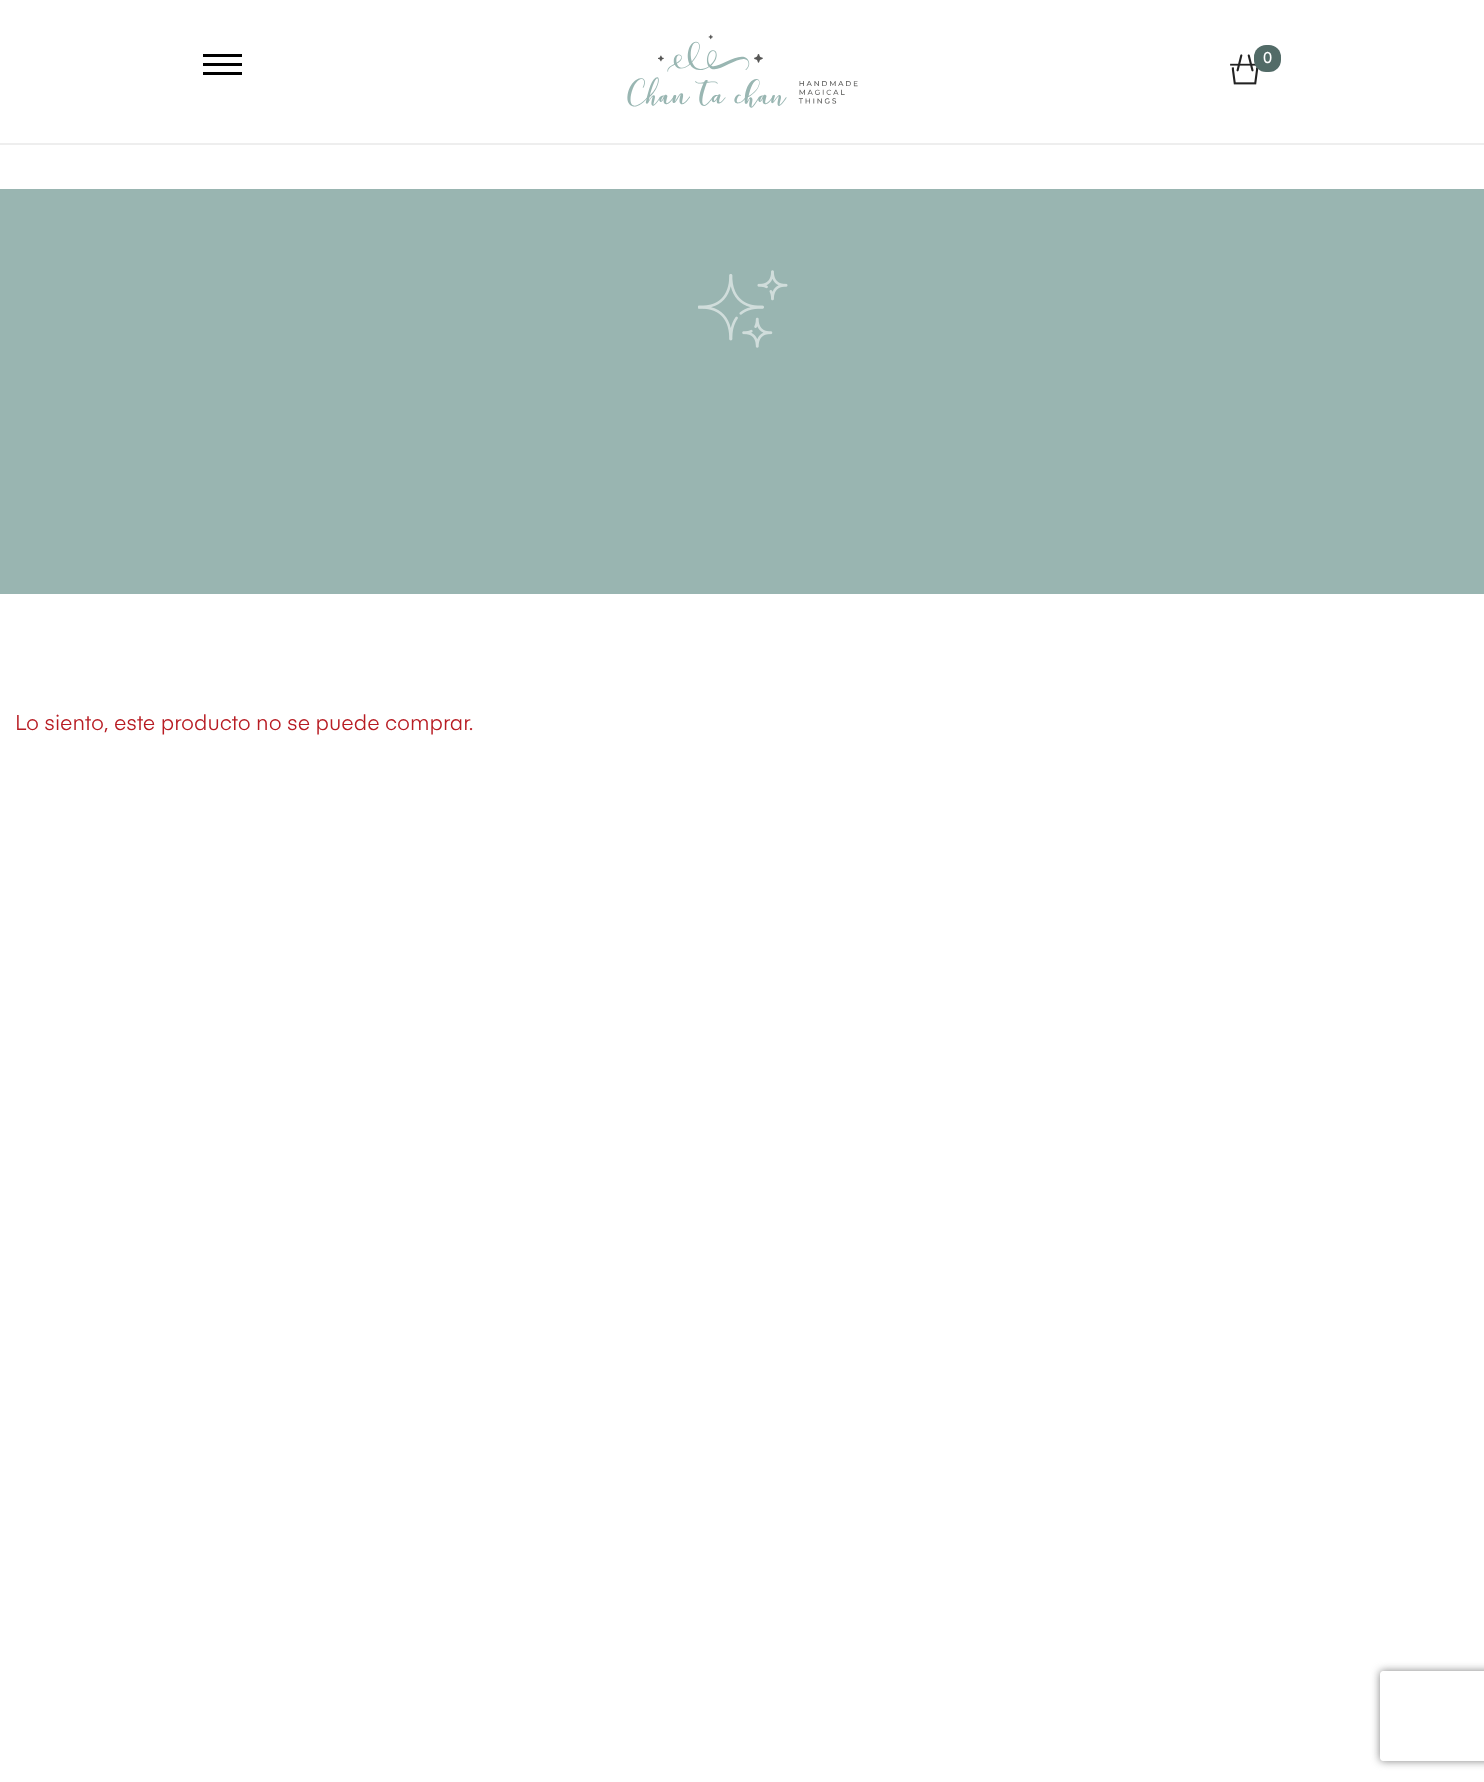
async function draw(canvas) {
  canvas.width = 1484
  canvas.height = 1782
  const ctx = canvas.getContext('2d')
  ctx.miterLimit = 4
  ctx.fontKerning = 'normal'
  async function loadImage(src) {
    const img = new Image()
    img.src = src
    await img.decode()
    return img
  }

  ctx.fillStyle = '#fff'
  ctx.fillRect(0, 0, 1484, 1782)
  ctx.fillStyle = '#eee'
  ctx.fillRect(0, 143, 1484, 2)
  ctx.fillStyle = '#000'
  ctx.fillRect(203, 63, 39, 3)
  ctx.fillRect(203, 54, 39, 3)
  ctx.fillRect(203, 72, 39, 3)
  ctx.drawImage(await loadImage('image0.png'), 627, 34, 231, 74)
  ctx.drawImage(await loadImage('image1.png'), 1230, 54, 29, 31)
  ctx.fillStyle = '#526b67'
  ctx.beginPath()
  ctx.roundRect(1254, 45, 27, 27, 12)
  ctx.fill()
  ctx.font = 'bold 15px "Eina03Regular"'
  ctx.fillStyle = '#fff'
  ctx.fillText('0', 1263, 63)
  ctx.fillStyle = '#99b5b1'
  ctx.fillRect(0, 189, 1484, 405)
  ctx.drawImage(await loadImage('image2.png'), 698, 270, 90, 78)
  ctx.font = '21px "Eina03Regular"'
  ctx.fillStyle = '#b81c23'
  ctx.fillText('Lo siento, este producto no se puede comprar.', 15, 730)
  ctx.save()
  ctx.beginPath()
  ctx.moveTo(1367, 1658)
  ctx.lineTo(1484, 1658)
  ctx.lineTo(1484, 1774)
  ctx.lineTo(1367, 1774)
  ctx.closePath()
  ctx.moveTo(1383, 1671)
  ctx.lineTo(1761, 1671)
  ctx.bezierCurveTo(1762.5, 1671, 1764, 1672.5, 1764, 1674)
  ctx.lineTo(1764, 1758)
  ctx.bezierCurveTo(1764, 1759.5, 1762.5, 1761, 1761, 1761)
  ctx.lineTo(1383, 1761)
  ctx.bezierCurveTo(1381.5, 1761, 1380, 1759.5, 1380, 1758)
  ctx.lineTo(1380, 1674)
  ctx.bezierCurveTo(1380, 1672.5, 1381.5, 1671, 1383, 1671)
  ctx.closePath()
  ctx.clip('evenodd')
  ctx.fillStyle = '#808080'
  ctx.filter = 'blur(4px)'
  ctx.beginPath()
  ctx.roundRect(1380, 1671, 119, 90, 3)
  ctx.fill()
  ctx.filter = 'none'
  ctx.restore()
}

draw(document.querySelector('canvas'))
